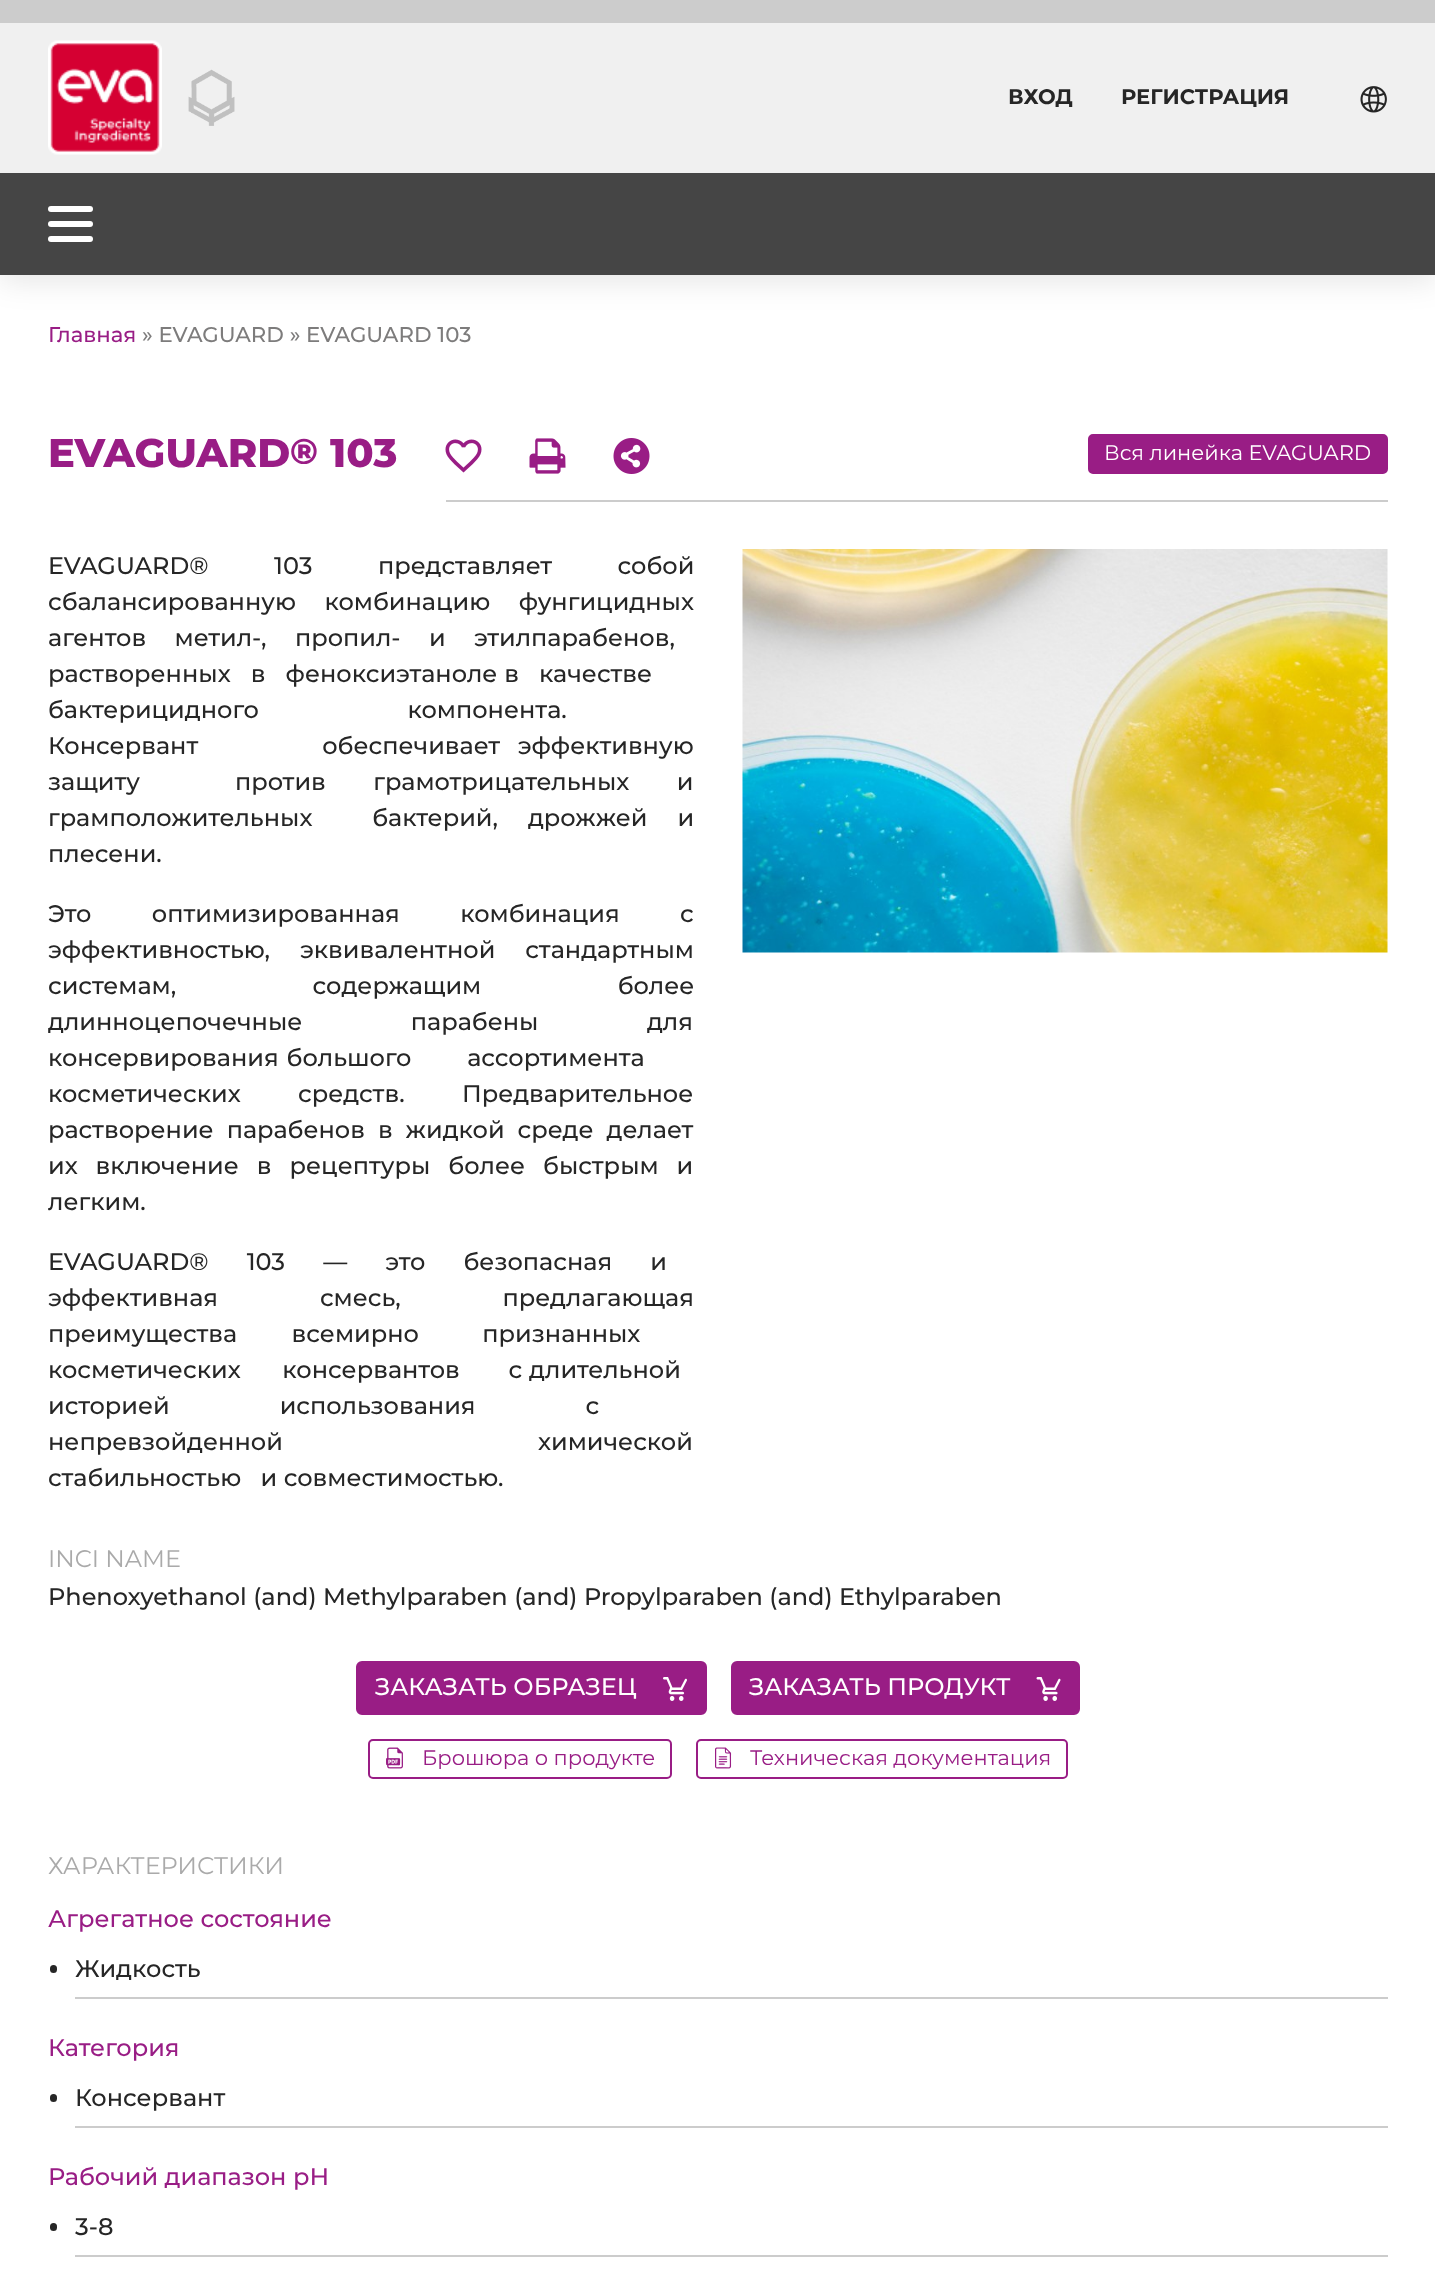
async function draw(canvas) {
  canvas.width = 1435
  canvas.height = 2278
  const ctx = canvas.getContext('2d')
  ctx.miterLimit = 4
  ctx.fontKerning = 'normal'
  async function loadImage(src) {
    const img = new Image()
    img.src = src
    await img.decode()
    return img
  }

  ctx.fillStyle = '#fff'
  ctx.fillRect(0, 0, 1435, 2278)
  ctx.fillStyle = '#0000001a'
  ctx.filter = 'blur(15px)'
  ctx.beginPath()
  ctx.rect(0, 6, 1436, 275)
  ctx.fill()
  ctx.filter = 'none'
  ctx.fillStyle = '#f0f0f0'
  ctx.fillRect(0, 23, 1435, 150)
  ctx.fillStyle = '#ccc'
  ctx.fillRect(0, 0, 1435, 23)
  ctx.drawImage(await loadImage('image0.png'), 48, 40, 114, 115)
  ctx.drawImage(await loadImage('image1.png'), 188, 69, 47, 57)
  ctx.font = 'bold 21px Montserrat'
  ctx.fillStyle = '#262626'
  ctx.fillText('ВХОД', 1008, 104)
  ctx.fillText('РЕГИСТРАЦИЯ', 1121, 104)
  ctx.drawImage(await loadImage('image2.png'), 1360, 86, 27, 27)
  ctx.fillStyle = '#454545'
  ctx.fillRect(0, 173, 1435, 102)
  ctx.fillStyle = '#fff'
  ctx.beginPath()
  ctx.roundRect(48, 221, 45, 6, 3)
  ctx.fill()
  ctx.beginPath()
  ctx.roundRect(48, 206, 45, 6, 3)
  ctx.fill()
  ctx.beginPath()
  ctx.roundRect(48, 236, 45, 6, 3)
  ctx.fill()
  ctx.font = '500 21.3px Montserrat'
  ctx.fillStyle = '#991d85'
  ctx.fillText('Главная', 48, 342)
  ctx.fillStyle = '#7d7c7c'
  ctx.fillText('» EVAGUARD » EVAGUARD 103', 142, 342)
  ctx.font = '800 40px Montserrat'
  ctx.fillStyle = '#991d85'
  ctx.fillText('EVAGUARD', 48, 467)
  ctx.font = '800 36px Montserrat'
  ctx.fillText('®', 290, 464)
  ctx.font = '800 40px Montserrat'
  ctx.fillText('103', 330, 467)
  ctx.fillStyle = '#ccc'
  ctx.fillRect(446, 500, 942, 2)
  ctx.drawImage(await loadImage('image3.png'), 445, 439, 37, 34)
  ctx.drawImage(await loadImage('image4.png'), 529, 438, 37, 36)
  ctx.drawImage(await loadImage('image5.png'), 613, 438, 37, 36)
  ctx.fillStyle = '#991d85'
  ctx.beginPath()
  ctx.roundRect(1089, 435, 298, 38, 4)
  ctx.fill()
  ctx.strokeStyle = '#991d85'
  ctx.lineWidth = 2
  ctx.stroke()
  ctx.font = '21px Montserrat'
  ctx.fillStyle = '#fff'
  ctx.fillText('Вся линейка EVAGUARD', 1104, 460)
  ctx.wordSpacing = '59px'
  ctx.font = '500 24px Montserrat'
  ctx.fillStyle = '#262626'
  ctx.fillText('EVAGUARD® 103 представляет собой', 48, 574)
  ctx.wordSpacing = '22px'
  ctx.fillText('сбалансированную комбинацию фунгицидных', 48, 610)
  ctx.wordSpacing = '3px'
  ctx.fillText('агентов   метил-,   пропил-   и   этилпарабенов,', 48, 646)
  ctx.wordSpacing = '0.25px'
  ctx.fillText('растворенных   в   феноксиэтаноле в   качестве', 48, 682)
  ctx.wordSpacing = '14.75px'
  ctx.fillText('бактерицидного       компонента.', 48, 718)
  ctx.wordSpacing = '11.25px'
  ctx.fillText('Консервант       обеспечивает эффективную', 48, 754)
  ctx.wordSpacing = '41px'
  ctx.fillText('защиту  против грамотрицательных и', 48, 790)
  ctx.wordSpacing = '23.5px'
  ctx.fillText('грамположительных  бактерий, дрожжей и', 48, 826)
  ctx.wordSpacing = '0px'
  ctx.fillText('плесени.', 48, 862)
  ctx.wordSpacing = '54px'
  ctx.fillText('Это оптимизированная комбинация с', 48, 922)
  ctx.wordSpacing = '23.5px'
  ctx.fillText('эффективностью, эквивалентной стандартным', 48, 958)
  ctx.wordSpacing = '130px'
  ctx.fillText('системам, содержащим более', 48, 994)
  ctx.wordSpacing = '102px'
  ctx.fillText('длинноцепочечные парабены для', 48, 1030)
  ctx.wordSpacing = '1.5px'
  ctx.fillText('консервирования большого       ассортимента', 48, 1066)
  ctx.wordSpacing = '1.75px'
  ctx.fillText('косметических       средств.       Предварительное', 48, 1102)
  ctx.wordSpacing = '6.5px'
  ctx.fillText('растворение парабенов в жидкой среде делает', 48, 1138)
  ctx.wordSpacing = '11.5px'
  ctx.fillText('их включение в рецептуры более быстрым и', 48, 1174)
  ctx.wordSpacing = '0px'
  ctx.fillText('легким.', 48, 1210)
  ctx.wordSpacing = '6.25px'
  ctx.fillText('EVAGUARD®   103   —   это   безопасная   и', 48, 1270)
  ctx.wordSpacing = '27.5px'
  ctx.fillText('эффективная   смесь,   предлагающая', 48, 1306)
  ctx.wordSpacing = '2.6px'
  ctx.fillText('преимущества      всемирно       признанных', 48, 1342)
  ctx.wordSpacing = '0.5px'
  ctx.fillText('косметических      консервантов       с длительной', 48, 1378)
  ctx.wordSpacing = '9.25px'
  ctx.fillText('историей       использования       с', 48, 1414)
  ctx.wordSpacing = '30px'
  ctx.fillText('непревзойденной       химической', 48, 1450)
  ctx.wordSpacing = '0px'
  ctx.fillText('стабильностью   и совместимостью.', 48, 1486)
  ctx.drawImage(await loadImage('image6.png'), 742, 549, 646, 404)
  ctx.font = '24px Montserrat'
  ctx.fillStyle = '#aaa'
  ctx.fillText('INCI NAME', 48, 1567)
  ctx.font = '500 24px Montserrat'
  ctx.fillStyle = '#262626'
  ctx.fillText('Phenoxyethanol (and) Methylparaben (and) Propylparaben (and) Ethylparaben', 48, 1605)
  ctx.fillStyle = '#991d85'
  ctx.beginPath()
  ctx.roundRect(357, 1662, 349, 52, 5)
  ctx.fill()
  ctx.stroke()
  ctx.fillStyle = '#fff'
  ctx.fillText('ЗАКАЗАТЬ ОБРАЗЕЦ', 375, 1695)
  ctx.drawImage(await loadImage('image7.png'), 663, 1677, 24, 24)
  ctx.fillStyle = '#991d85'
  ctx.beginPath()
  ctx.roundRect(732, 1662, 347, 52, 5)
  ctx.fill()
  ctx.stroke()
  ctx.fillStyle = '#fff'
  ctx.fillText('ЗАКАЗАТЬ ПРОДУКТ', 749, 1695)
  ctx.drawImage(await loadImage('image8.png'), 1036, 1677, 25, 24)
  ctx.beginPath()
  ctx.roundRect(369, 1740, 302, 38, 4)
  ctx.stroke()
  ctx.drawImage(await loadImage('image9.png'), 386, 1747, 17, 22)
  ctx.font = '21px Montserrat'
  ctx.fillStyle = '#991d85'
  ctx.fillText('Брошюра о продукте', 422, 1765)
  ctx.beginPath()
  ctx.roundRect(697, 1740, 370, 38, 4)
  ctx.stroke()
  ctx.drawImage(await loadImage('image10.png'), 715, 1747, 17, 22)
  ctx.fillText('Техническая документация', 750, 1765)
  ctx.font = '24px Montserrat'
  ctx.fillStyle = '#aaa'
  ctx.fillText('ХАРАКТЕРИСТИКИ', 48, 1874)
  ctx.font = '500 24px Montserrat'
  ctx.fillStyle = '#991d85'
  ctx.fillText('Агрегатное состояние', 48, 1927)
  ctx.fillStyle = '#ccc'
  ctx.fillRect(75, 1997, 1313, 2)
  ctx.fillStyle = '#262626'
  ctx.beginPath()
  ctx.roundRect(50, 1965, 7, 8, 3.5)
  ctx.fill()
  ctx.fillText('Жидкость', 75, 1977)
  ctx.fillStyle = '#991d85'
  ctx.fillText('Категория', 48, 2056)
  ctx.fillStyle = '#ccc'
  ctx.fillRect(75, 2126, 1313, 2)
  ctx.fillStyle = '#262626'
  ctx.beginPath()
  ctx.roundRect(50, 2094, 7, 8, 3.5)
  ctx.fill()
  ctx.fillText('Консервант', 75, 2106)
  ctx.fillStyle = '#991d85'
  ctx.fillText('Рабочий диапазон рН', 48, 2185)
  ctx.fillStyle = '#ccc'
  ctx.fillRect(75, 2255, 1313, 2)
  ctx.fillStyle = '#262626'
  ctx.beginPath()
  ctx.roundRect(50, 2223, 7, 8, 3.5)
  ctx.fill()
  ctx.fillText('3-8', 75, 2235)
}

draw(document.querySelector('canvas'))
